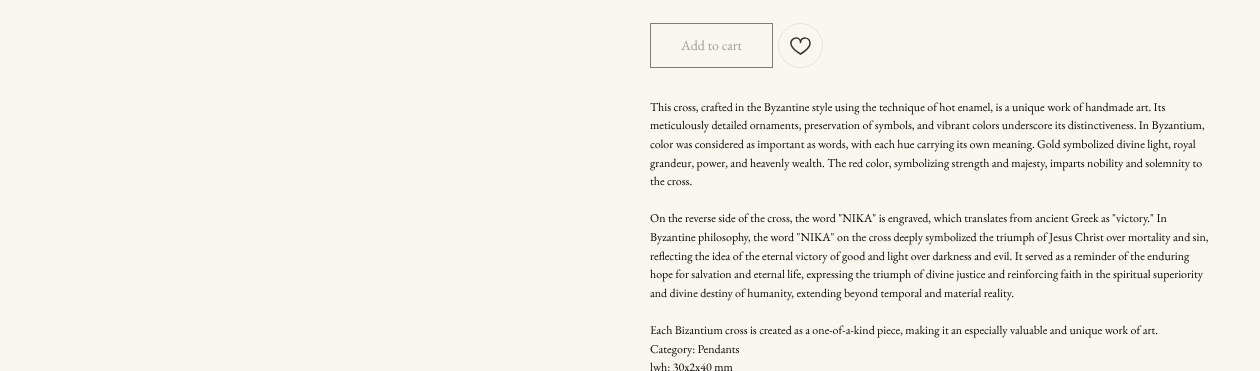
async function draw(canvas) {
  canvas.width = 1260
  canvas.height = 371
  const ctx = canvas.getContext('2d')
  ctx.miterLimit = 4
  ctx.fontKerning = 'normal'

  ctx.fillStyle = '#faf7ee'
  ctx.fillRect(0, 0, 1260, 371)
  ctx.strokeStyle = '#7d7c77'
  ctx.strokeRect(650.5, 23.5, 122, 44)
  ctx.font = '14px EB Garamond'
  ctx.fillStyle = '#a3a19b'
  ctx.fillText('Add to cart', 681, 50)
  ctx.beginPath()
  ctx.arc(800.5, 45.5, 22, 0, 2 * Math.PI)
  ctx.strokeStyle = '#e4e4e4'
  ctx.stroke()
  ctx.beginPath()
  ctx.moveTo(810, 43.5)
  ctx.bezierCurveTo(810, 48.5, 800.5, 54, 800.5, 54)
  ctx.bezierCurveTo(779, 41.5, 800.5, 32, 800.5, 42.5)
  ctx.bezierCurveTo(800.5, 36.5, 810, 36.5, 810, 43.5)
  ctx.closePath()
  ctx.strokeStyle = '#333'
  ctx.lineWidth = 1.5
  ctx.lineJoin = 'round'
  ctx.stroke()
  ctx.font = '12px EB Garamond'
  ctx.fillStyle = '#000'
  ctx.fillText('This cross, crafted in the Byzantine style using the technique of hot enamel, is a unique work of handmade art. Its', 650, 111)
  ctx.fillText('meticulously detailed ornaments, preservation of symbols, and vibrant colors underscore its distinctiveness. In Byzantium,', 650, 129)
  ctx.fillText('color was considered as important as words, with each hue carrying its own meaning. Gold symbolized divine light, royal', 650, 148)
  ctx.fillText('grandeur, power, and heavenly wealth. The red color, symbolizing strength and majesty, imparts nobility and solemnity to', 650, 167)
  ctx.fillText('the cross.', 650, 185)
  ctx.fillText('On the reverse side of the cross, the word "NIKA" is engraved, which translates from ancient Greek as "victory." In', 650, 222)
  ctx.fillText('Byzantine philosophy, the word "NIKA" on the cross deeply symbolized the triumph of Jesus Christ over mortality and sin,', 650, 241)
  ctx.fillText('reflecting the idea of the eternal victory of good and light over darkness and evil. It served as a reminder of the enduring', 650, 260)
  ctx.fillText('hope for salvation and eternal life, expressing the triumph of divine justice and reinforcing faith in the spiritual superiority', 650, 278)
  ctx.fillText('and divine destiny of humanity, extending beyond temporal and material reality.', 650, 297)
  ctx.fillText('Each Bizantium cross is created as a one-of-a-kind piece, making it an especially valuable and unique work of art.', 650, 334)
  ctx.fillText('Category: Pendants', 650, 353)
  ctx.fillText('lwh: 30x2x40 mm', 650, 371)
}

draw(document.querySelector('canvas'))
